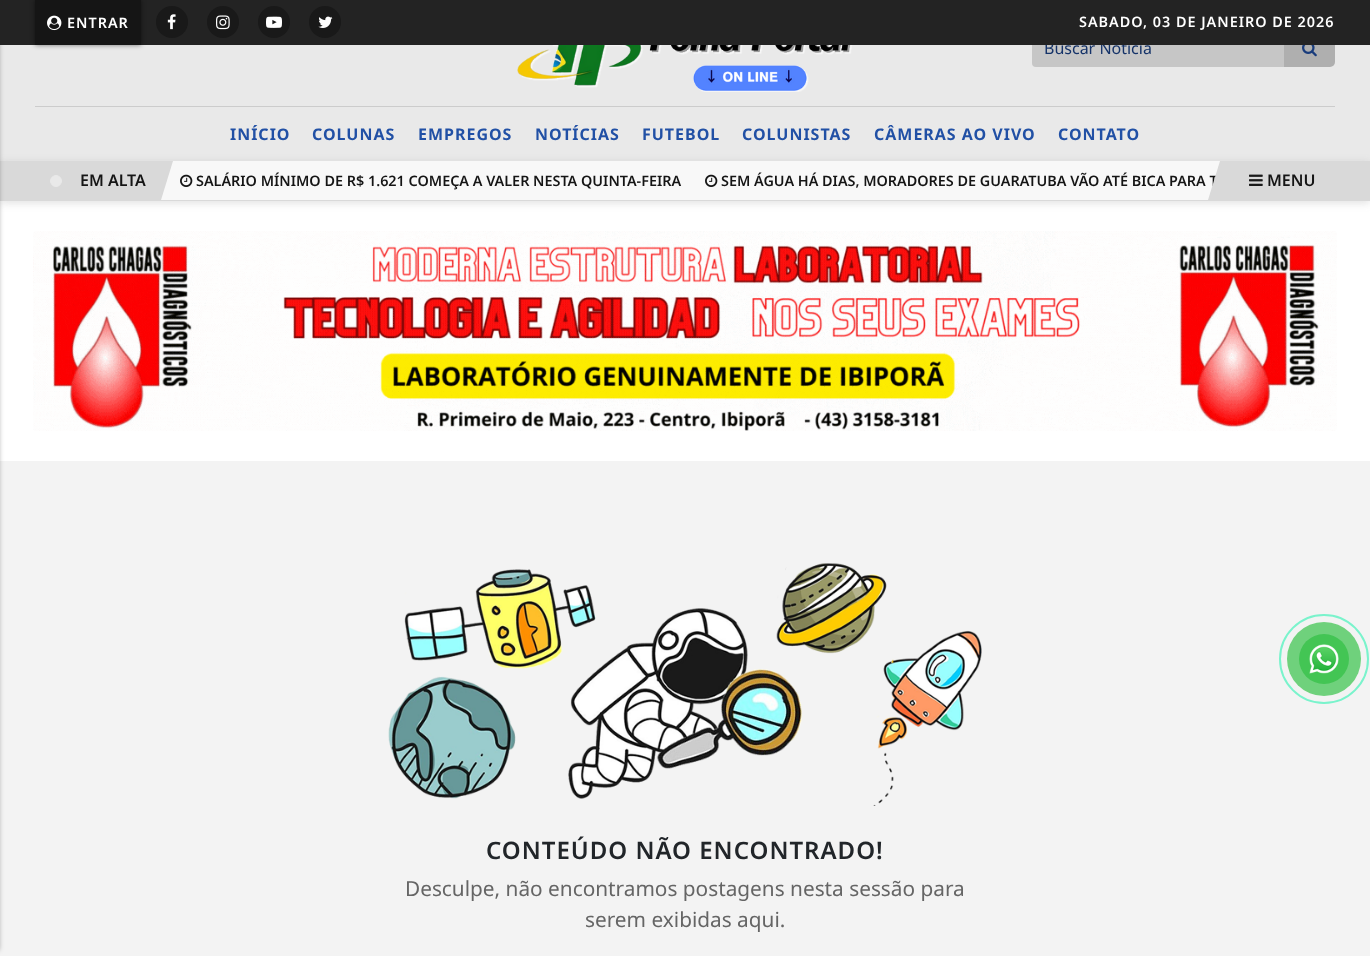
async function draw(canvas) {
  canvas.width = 1370
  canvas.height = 956
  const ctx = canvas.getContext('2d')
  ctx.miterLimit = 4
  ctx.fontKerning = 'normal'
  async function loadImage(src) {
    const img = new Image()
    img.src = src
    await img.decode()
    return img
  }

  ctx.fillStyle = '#fff'
  ctx.fillRect(0, 0, 1370, 956)
  ctx.fillStyle = '#e9e9e9'
  ctx.fillRect(0, 45, 1370, 116)
  ctx.fillStyle = '#63636333'
  ctx.filter = 'blur(4px)'
  ctx.beginPath()
  ctx.rect(0, 163, 1370, 40)
  ctx.fill()
  ctx.filter = 'none'
  ctx.fillStyle = '#d9d9d9'
  ctx.fillRect(0, 161, 1370, 40)
  ctx.fillStyle = '#f3f3f3'
  ctx.fillRect(0, 461, 1370, 495)
  ctx.fillStyle = '#00000059'
  ctx.filter = 'blur(2.5px)'
  ctx.beginPath()
  ctx.rect(-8, 6, 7, 944)
  ctx.fill()
  ctx.filter = 'none'
  ctx.fillStyle = '#c6c6c6'
  ctx.beginPath()
  ctx.roundRect(1032, 29, 253, 38, [4, 0, 0, 4])
  ctx.fill()
  ctx.font = '16px Noto Sans'
  ctx.fillStyle = '#153369'
  ctx.fillText('Buscar Notícia', 1044, 54)
  ctx.fillStyle = '#afafaf'
  ctx.beginPath()
  ctx.roundRect(1284, 29, 51, 38, [0, 5, 5, 0])
  ctx.fill()
  ctx.fillStyle = '#232323'
  ctx.fillRect(0, 0, 1370, 45)
  ctx.fillStyle = '#00000080'
  ctx.filter = 'blur(2.5px)'
  ctx.beginPath()
  ctx.rect(35, 0, 106, 45)
  ctx.fill()
  ctx.filter = 'none'
  ctx.fillStyle = '#151515'
  ctx.fillRect(35, 0, 106, 45)
  ctx.drawImage(await loadImage('image0.png'), 47, 15, 15, 16)
  ctx.letterSpacing = '1px'
  ctx.font = '600 14.4px Noto Sans'
  ctx.fillStyle = '#fff'
  ctx.fillText('ENTRAR', 67, 28)
  ctx.fillStyle = '#191919'
  ctx.beginPath()
  ctx.arc(172, 22, 16, 0, 2 * Math.PI)
  ctx.fill()
  ctx.drawImage(await loadImage('image1.png'), 167, 14, 9, 16)
  ctx.beginPath()
  ctx.arc(223, 22, 16, 0, 2 * Math.PI)
  ctx.fill()
  ctx.drawImage(await loadImage('image2.png'), 216, 15, 14, 15)
  ctx.beginPath()
  ctx.arc(274, 22, 16, 0, 2 * Math.PI)
  ctx.fill()
  ctx.drawImage(await loadImage('image3.png'), 266, 16, 16, 12)
  ctx.beginPath()
  ctx.arc(325, 22, 16, 0, 2 * Math.PI)
  ctx.fill()
  ctx.drawImage(await loadImage('image4.png'), 318, 16, 15, 12)
  ctx.font = '600 14.4px "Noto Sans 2"'
  ctx.fillStyle = '#fff'
  ctx.fillText('SABADO, 03 DE JANEIRO DE 2026', 1079, 27)
  ctx.drawImage(await loadImage('image5.png'), 517, 45, 336, 47)
  ctx.drawImage(await loadImage('image6.png'), 1302, 45, 15, 12)
  ctx.fillStyle = '#ccc'
  ctx.fillRect(35, 106, 1300, 1)
  ctx.font = 'bold 16px Noto Sans'
  ctx.fillStyle = '#2150a5'
  ctx.fillText('INÍCIO', 230, 140)
  ctx.fillText('COLUNAS', 312, 140)
  ctx.fillText('EMPREGOS', 418, 140)
  ctx.fillText('NOTÍCIAS', 535, 140)
  ctx.fillText('FUTEBOL', 642, 140)
  ctx.fillText('COLUNISTAS', 742, 140)
  ctx.fillText('CÂMERAS AO VIVO', 874, 140)
  ctx.fillText('CONTATO', 1058, 140)
  ctx.fillStyle = '#f8f8f8'
  ctx.fillRect(161, 161, 1059, 39)
  ctx.fillStyle = '#e9e9e9'
  ctx.beginPath()
  ctx.arc(56, 181, 5.5, 0, 2 * Math.PI)
  ctx.fill()
  ctx.strokeStyle = '#e9e9e9'
  ctx.stroke()
  ctx.letterSpacing = '0px'
  ctx.font = '600 16px Noto Sans'
  ctx.fillStyle = '#151515'
  ctx.fillText('EM ALTA', 80, 186)
  ctx.fillStyle = '#d9d9d9'
  ctx.beginPath()
  ctx.moveTo(161, 161)
  ctx.lineTo(173, 161)
  ctx.lineTo(161, 200)
  ctx.closePath()
  ctx.fill()
  ctx.drawImage(await loadImage('image7.png'), 180, 174, 13, 13)
  ctx.font = '600 14.4px "Noto Sans 2"'
  ctx.fillStyle = '#151515'
  ctx.fillText('SALÁRIO MÍNIMO DE R$ 1.621 COMEÇA A VALER NESTA QUINTA-FEIRA', 196, 186)
  ctx.drawImage(await loadImage('image7.png'), 705, 174, 13, 13)
  ctx.fillText('SEM ÁGUA HÁ DIAS, MORADORES DE GUARATUBA VÃO ATÉ BICA PARA T', 721, 186)
  ctx.fillStyle = '#d9d9d9'
  ctx.beginPath()
  ctx.moveTo(1220, 200)
  ctx.lineTo(1208, 200)
  ctx.lineTo(1220, 161)
  ctx.closePath()
  ctx.fill()
  ctx.drawImage(await loadImage('image8.png'), 1249, 174, 14, 12)
  ctx.font = '600 16px Noto Sans'
  ctx.fillStyle = '#151515'
  ctx.fillText('MENU', 1267, 186)
  ctx.drawImage(await loadImage('image9.png'), 33, 231, 1304, 200)
  ctx.beginPath()
  ctx.arc(1324, 659, 44, 0, 2 * Math.PI)
  ctx.strokeStyle = '#7af3cc'
  ctx.lineWidth = 2
  ctx.stroke()
  ctx.fillStyle = '#6fd17c'
  ctx.beginPath()
  ctx.arc(1324, 659, 37, 0, 2 * Math.PI)
  ctx.fill()
  ctx.fillStyle = '#43c554'
  ctx.beginPath()
  ctx.arc(1324, 659, 25, 0, 2 * Math.PI)
  ctx.fill()
  ctx.drawImage(await loadImage('image10.png'), 1309, 644, 30, 30)
  ctx.drawImage(await loadImage('image11.png'), 388, 563, 594, 243)
  ctx.letterSpacing = '1px'
  ctx.font = '600 24px Noto Sans'
  ctx.fillStyle = '#212529'
  ctx.fillText('CONTEÚDO NÃO ENCONTRADO!', 486, 859)
  ctx.letterSpacing = '0px'
  ctx.font = '20.8px Noto Sans'
  ctx.fillStyle = '#656565'
  ctx.fillText('Desculpe, não encontramos postagens nesta sessão para', 405, 896)
  ctx.fillText('serem exibidas aqui.', 585, 927)
}

draw(document.querySelector('canvas'))
